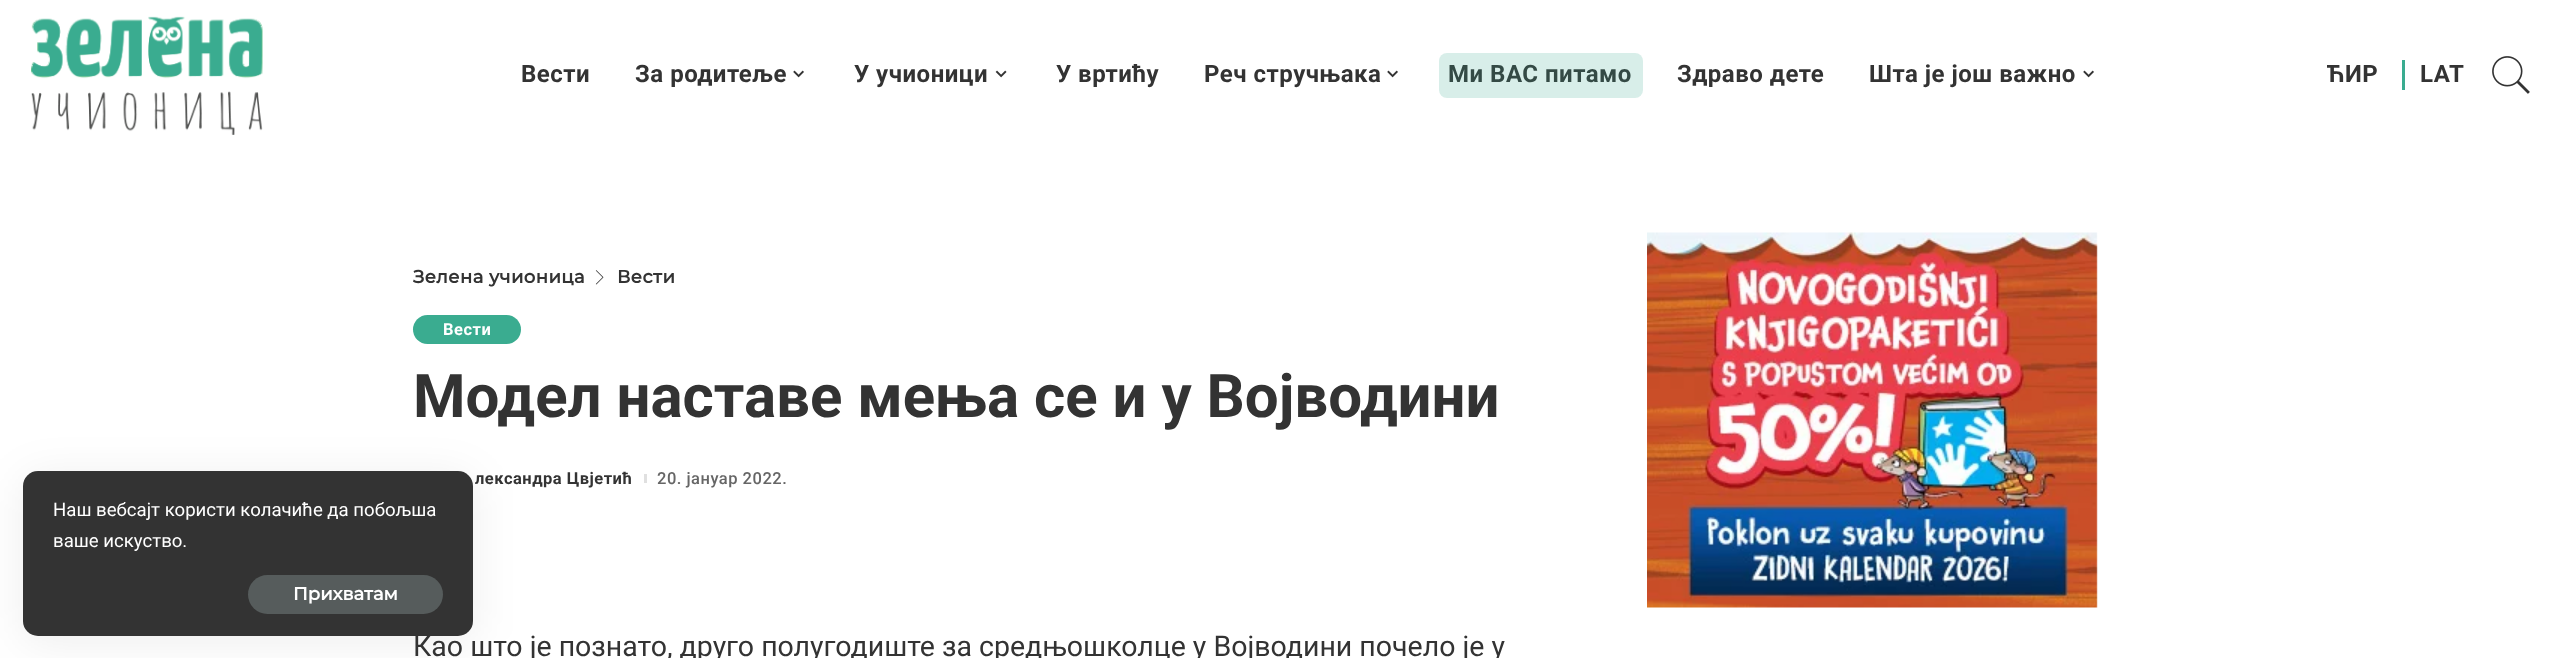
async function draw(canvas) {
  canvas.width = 2564
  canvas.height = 658
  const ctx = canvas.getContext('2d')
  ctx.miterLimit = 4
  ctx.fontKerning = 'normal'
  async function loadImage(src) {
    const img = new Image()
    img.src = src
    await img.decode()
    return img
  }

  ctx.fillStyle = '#fff'
  ctx.fillRect(0, 0, 2564, 658)
  ctx.fillStyle = '#00000012'
  ctx.filter = 'blur(22.5px)'
  ctx.beginPath()
  ctx.roundRect(23, 477, 450, 165, 15)
  ctx.fill()
  ctx.filter = 'none'
  ctx.fillStyle = '#333'
  ctx.beginPath()
  ctx.roundRect(23, 471, 450, 165, 15)
  ctx.fill()
  ctx.font = '18.6px Roboto'
  ctx.fillStyle = '#fff'
  ctx.fillText('Наш вебсајт користи колачиће да побољша', 53, 516)
  ctx.fillText('ваше искуство.', 53, 547)
  ctx.fillStyle = '#565c5c'
  ctx.beginPath()
  ctx.roundRect(248, 575, 195, 39, 19.5)
  ctx.fill()
  ctx.font = 'bold 18px Montserrat'
  ctx.fillStyle = '#fff'
  ctx.fillText('Прихватам', 293, 600)
  ctx.drawImage(await loadImage('image0.png'), 31, 16, 232, 119)
  ctx.letterSpacing = '0.5px'
  ctx.font = 'bold 24px Roboto'
  ctx.fillStyle = '#333'
  ctx.fillText('Вести', 521, 82)
  ctx.fillText('За родитеље', 635, 82)
  ctx.drawImage(await loadImage('image1.png'), 793, 70, 11, 8)
  ctx.fillText('У учионици', 854, 82)
  ctx.drawImage(await loadImage('image2.png'), 995, 70, 12, 8)
  ctx.fillText('У вртићу', 1056, 82)
  ctx.fillText('Реч стручњака', 1204, 82)
  ctx.drawImage(await loadImage('image1.png'), 1387, 70, 11, 8)
  ctx.fillText('Ми ВАС питамо', 1448, 82)
  ctx.fillStyle = '#3aac9033'
  ctx.beginPath()
  ctx.roundRect(1439, 53, 204, 45, 8)
  ctx.fill()
  ctx.fillStyle = '#333'
  ctx.fillText('Здраво дете', 1677, 82)
  ctx.fillText('Шта је још важно', 1869, 82)
  ctx.drawImage(await loadImage('image1.png'), 2083, 70, 11, 8)
  ctx.save()
  ctx.beginPath()
  ctx.rect(2327, 60, 52, 30)
  ctx.clip()
  ctx.fillText('ЋИР', 2326, 82)
  ctx.restore()
  ctx.fillStyle = '#3aac90'
  ctx.fillRect(2402, 60, 3, 30)
  ctx.fillStyle = '#333'
  ctx.fillText('LAT', 2420, 82)
  ctx.drawImage(await loadImage('image3.png'), 2492, 56, 38, 38)
  ctx.letterSpacing = '0.4px'
  ctx.font = 'bold 18px Montserrat'
  ctx.fillText('Зелена учионица', 413, 283)
  ctx.drawImage(await loadImage('image4.png'), 595, 270, 9, 15)
  ctx.fillText('Вести', 617, 283)
  ctx.fillStyle = '#3aac90'
  ctx.beginPath()
  ctx.roundRect(413, 315, 108, 29, 14.5)
  ctx.fill()
  ctx.letterSpacing = '0.5px'
  ctx.font = 'bold 16.5px Roboto'
  ctx.fillStyle = '#fff'
  ctx.fillText('Вести', 443, 335)
  ctx.letterSpacing = '0px'
  ctx.font = 'bold 60px Roboto'
  ctx.fillStyle = '#333'
  ctx.fillText('Модел наставе мења се и у Војводини', 413, 417)
  ctx.letterSpacing = '0.5px'
  ctx.font = 'bold 16.5px Roboto'
  ctx.fillText('лександра Цвјетић', 475, 484)
  ctx.fillStyle = '#e0e0e0'
  ctx.fillRect(644, 474, 3, 9)
  ctx.font = '500 16.5px Roboto'
  ctx.fillStyle = '#666'
  ctx.fillText('20. јануар 2022.', 657, 484)
  ctx.letterSpacing = '0px'
  ctx.font = '28.5px Roboto'
  ctx.fillStyle = '#333'
  ctx.fillText('Као што је познато, друго полугодиште за средњошколце у Војводини почело је у', 413, 656)
  ctx.drawImage(await loadImage('image5.png'), 1647, 232, 451, 376)
}

draw(document.querySelector('canvas'))
